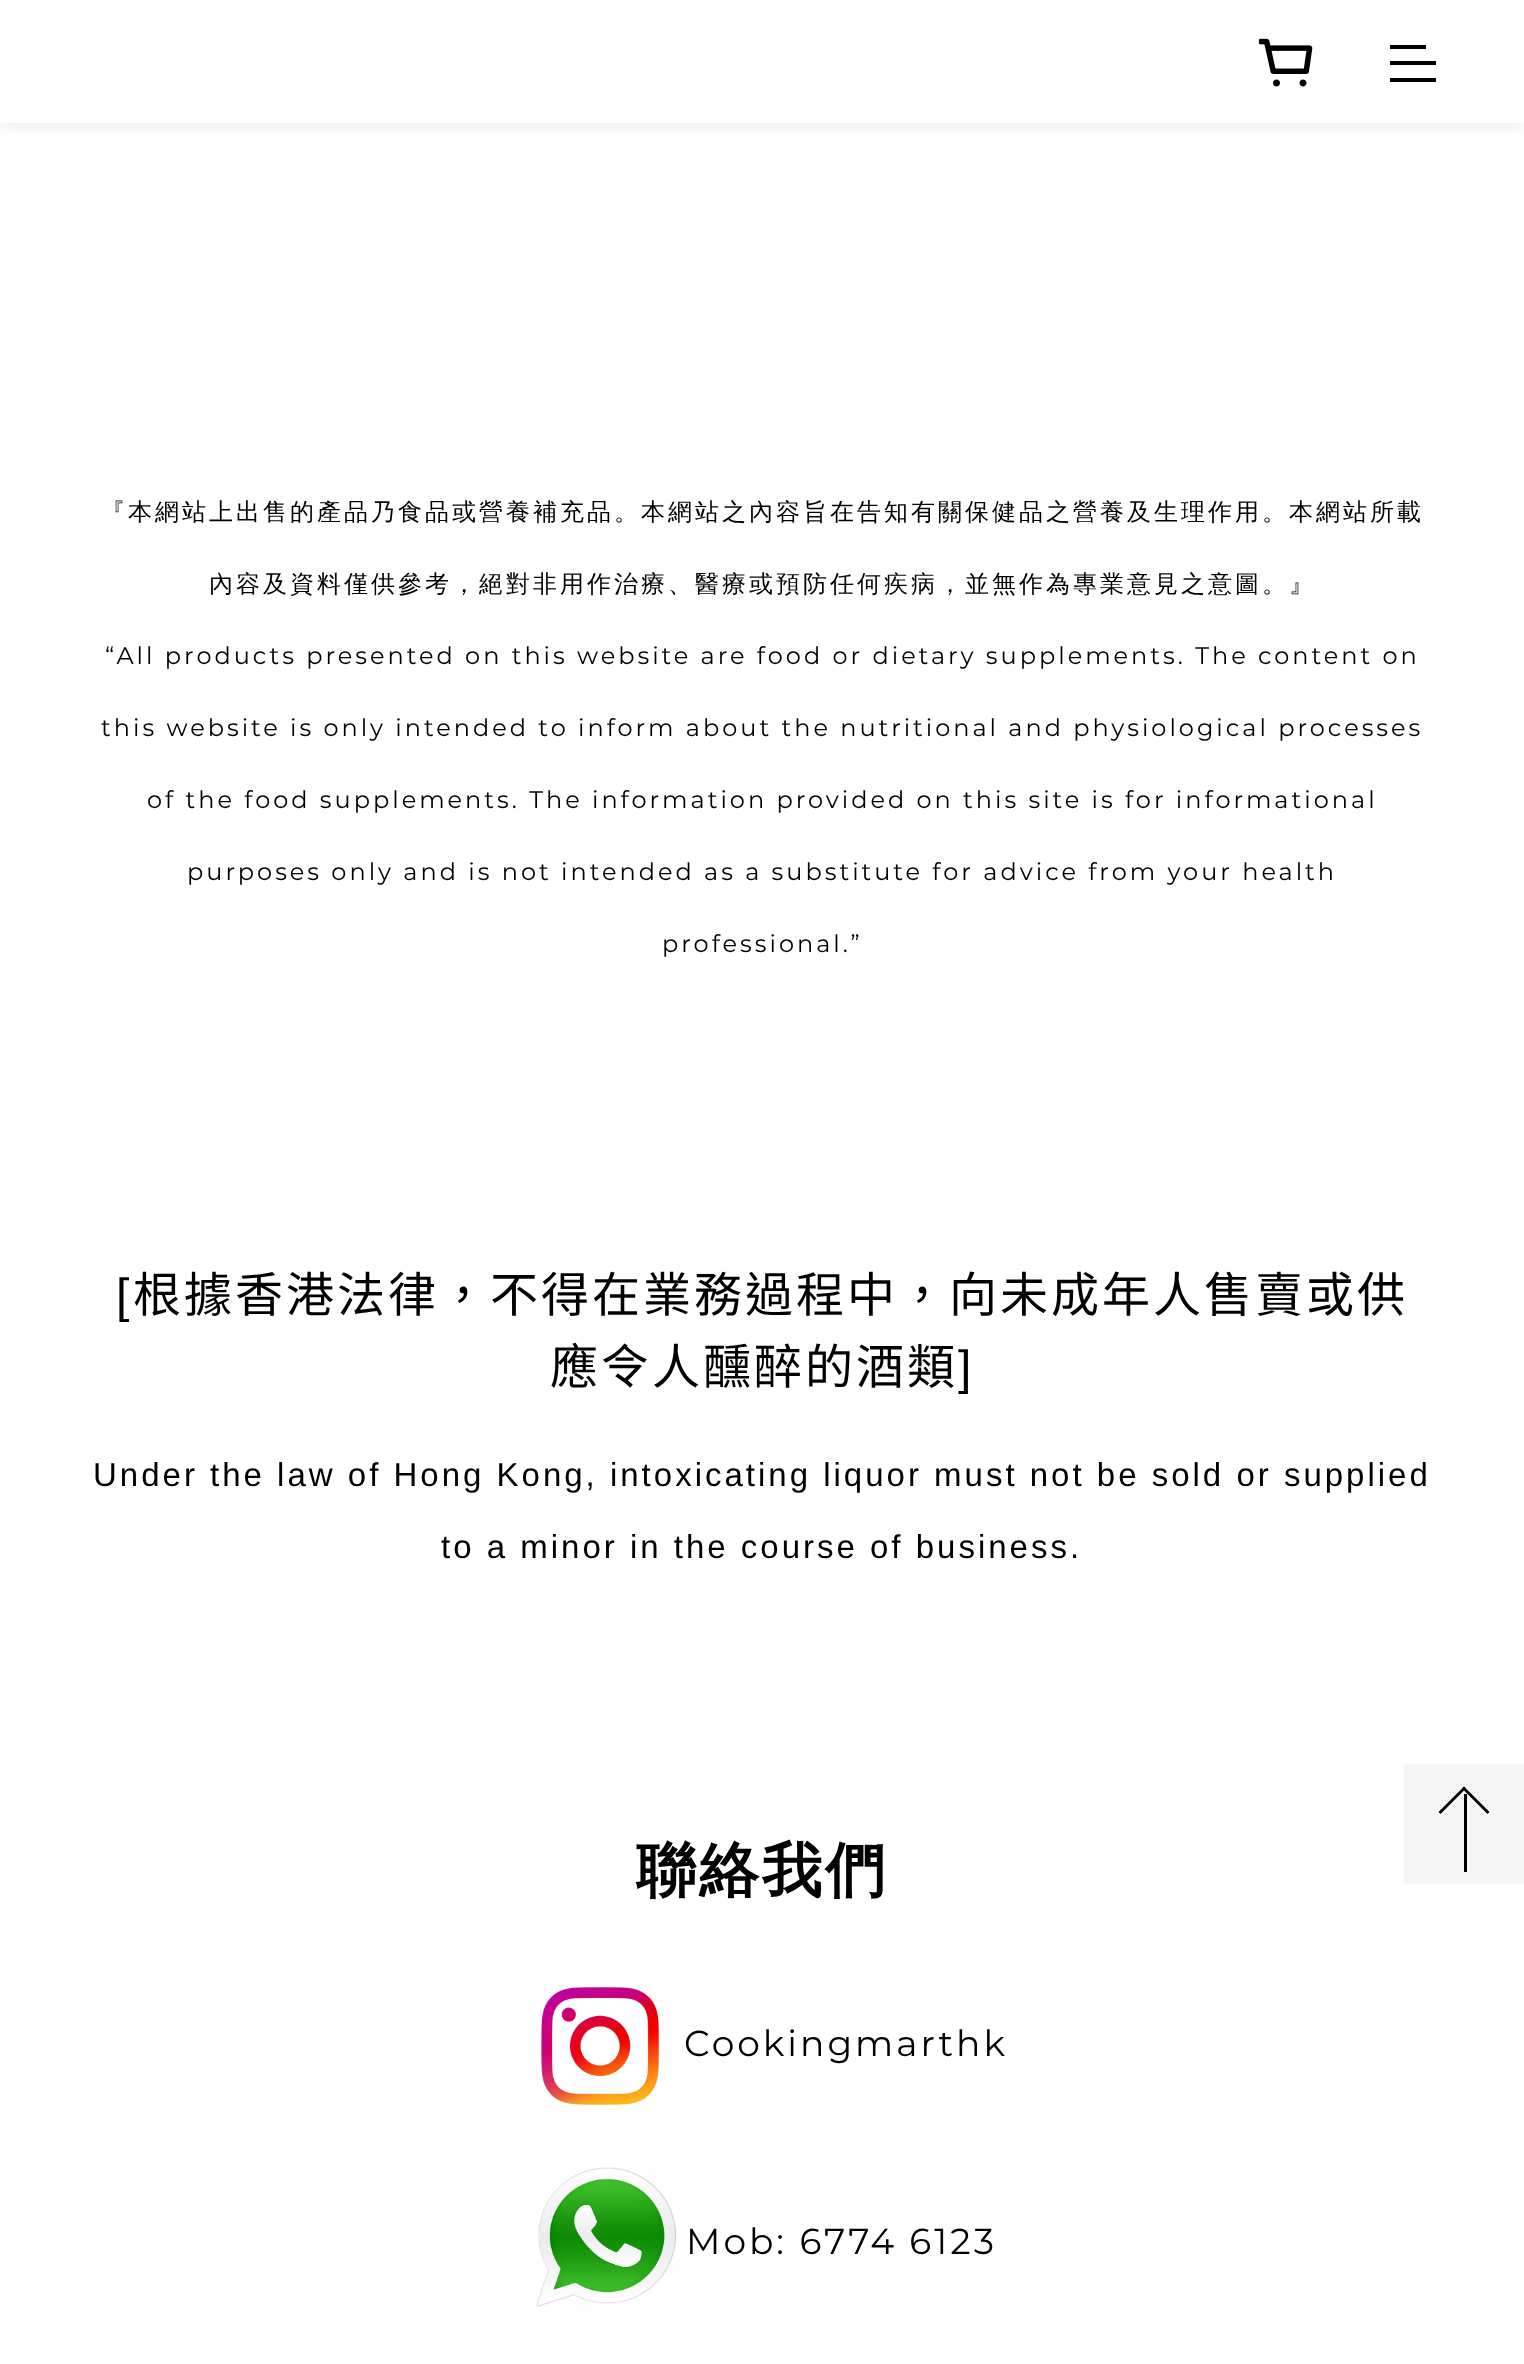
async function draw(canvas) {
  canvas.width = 1524
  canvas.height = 2364
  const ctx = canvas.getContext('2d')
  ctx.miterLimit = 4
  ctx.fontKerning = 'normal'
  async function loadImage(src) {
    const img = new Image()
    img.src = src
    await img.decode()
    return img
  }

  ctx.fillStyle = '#fff'
  ctx.fillRect(0, 0, 1524, 2364)
  ctx.save()
  ctx.beginPath()
  ctx.rect(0, 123, 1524, 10)
  ctx.clip()
  ctx.fillStyle = '#0000000f'
  ctx.filter = 'blur(9px)'
  ctx.beginPath()
  ctx.rect(0, 6, 1524, 123)
  ctx.fill()
  ctx.filter = 'none'
  ctx.restore()
  ctx.drawImage(await loadImage('image0.png'), 1258, 38, 55, 49)
  ctx.fillStyle = '#000'
  ctx.beginPath()
  ctx.moveTo(1436, 65)
  ctx.lineTo(1436, 61)
  ctx.lineTo(1390, 61)
  ctx.lineTo(1390, 65)
  ctx.closePath()
  ctx.moveTo(1426, 49)
  ctx.lineTo(1426, 45)
  ctx.lineTo(1390, 45)
  ctx.lineTo(1390, 49)
  ctx.closePath()
  ctx.moveTo(1436, 82)
  ctx.lineTo(1436, 78)
  ctx.lineTo(1390, 78)
  ctx.lineTo(1390, 82)
  ctx.closePath()
  ctx.fill()
  ctx.letterSpacing = '3px'
  ctx.font = '500 24px WenQuanYi Zen Hei'
  ctx.fillText('『本網站上出售的產品乃食品或營養補充品。本網站之內容旨在告知有關保健品之營養及生理作用。本網站所載', 101, 520)
  ctx.fillText('內容及資料僅供參考，絕對非用作治療、醫療或預防任何疾病，並無作為專業意見之意圖。』', 209, 592)
  ctx.font = '24px Montserrat'
  ctx.fillText('“All products presented on this website are food or dietary supplements. The content on', 105, 664)
  ctx.fillText('this website is only intended to inform about the nutritional and physiological processes', 101, 736)
  ctx.fillText('of the food supplements. The information provided on this site is for informational', 147, 808)
  ctx.fillText('purposes only and is not intended as a substitute for advice from your health', 187, 880)
  ctx.fillText('professional.”', 662, 952)
  ctx.font = '48px Liberation Sans'
  ctx.fillText('[', 116, 1312)
  ctx.font = '48px Noto Sans CJK TC'
  ctx.fillText('根據香港法律，不得在業務過程中，向未成年人售賣或供', 133, 1312)
  ctx.fillText('應令人醺醉的酒類', 550, 1384)
  ctx.font = '48px Liberation Sans'
  ctx.fillText(']', 958, 1384)
  ctx.font = '33px Liberation Sans'
  ctx.fillText('Under the law of Hong Kong, intoxicating liquor must not be sold or supplied', 93, 1486)
  ctx.fillText('to a minor in the course of business.', 441, 1558)
  ctx.font = 'bold 60px WenQuanYi Zen Hei'
  ctx.fillText('聯絡我們', 636, 1891)
  ctx.drawImage(await loadImage('image1.png'), 541, 1987, 119, 118)
  ctx.font = '36px Montserrat'
  ctx.fillText('Cookingmarthk', 684, 2056)
  ctx.drawImage(await loadImage('image2.png'), 536, 2167, 141, 140)
  ctx.fillText('Mob: 6774 6123', 686, 2254)
  ctx.fillStyle = '#f5f5f5'
  ctx.fillRect(1404, 1764, 120, 120)
  ctx.fillStyle = '#000'
  ctx.beginPath()
  ctx.moveTo(1464, 1786.5)
  ctx.lineTo(1489.5, 1812)
  ctx.lineTo(1487.5, 1814)
  ctx.lineTo(1462, 1788.5)
  ctx.closePath()
  ctx.fill()
  ctx.beginPath()
  ctx.moveTo(1464, 1786.5)
  ctx.lineTo(1466, 1788.5)
  ctx.lineTo(1440.5, 1814)
  ctx.lineTo(1438.5, 1812)
  ctx.closePath()
  ctx.fill()
  ctx.fillRect(1464, 1794, 3, 78)
}

draw(document.querySelector('canvas'))
